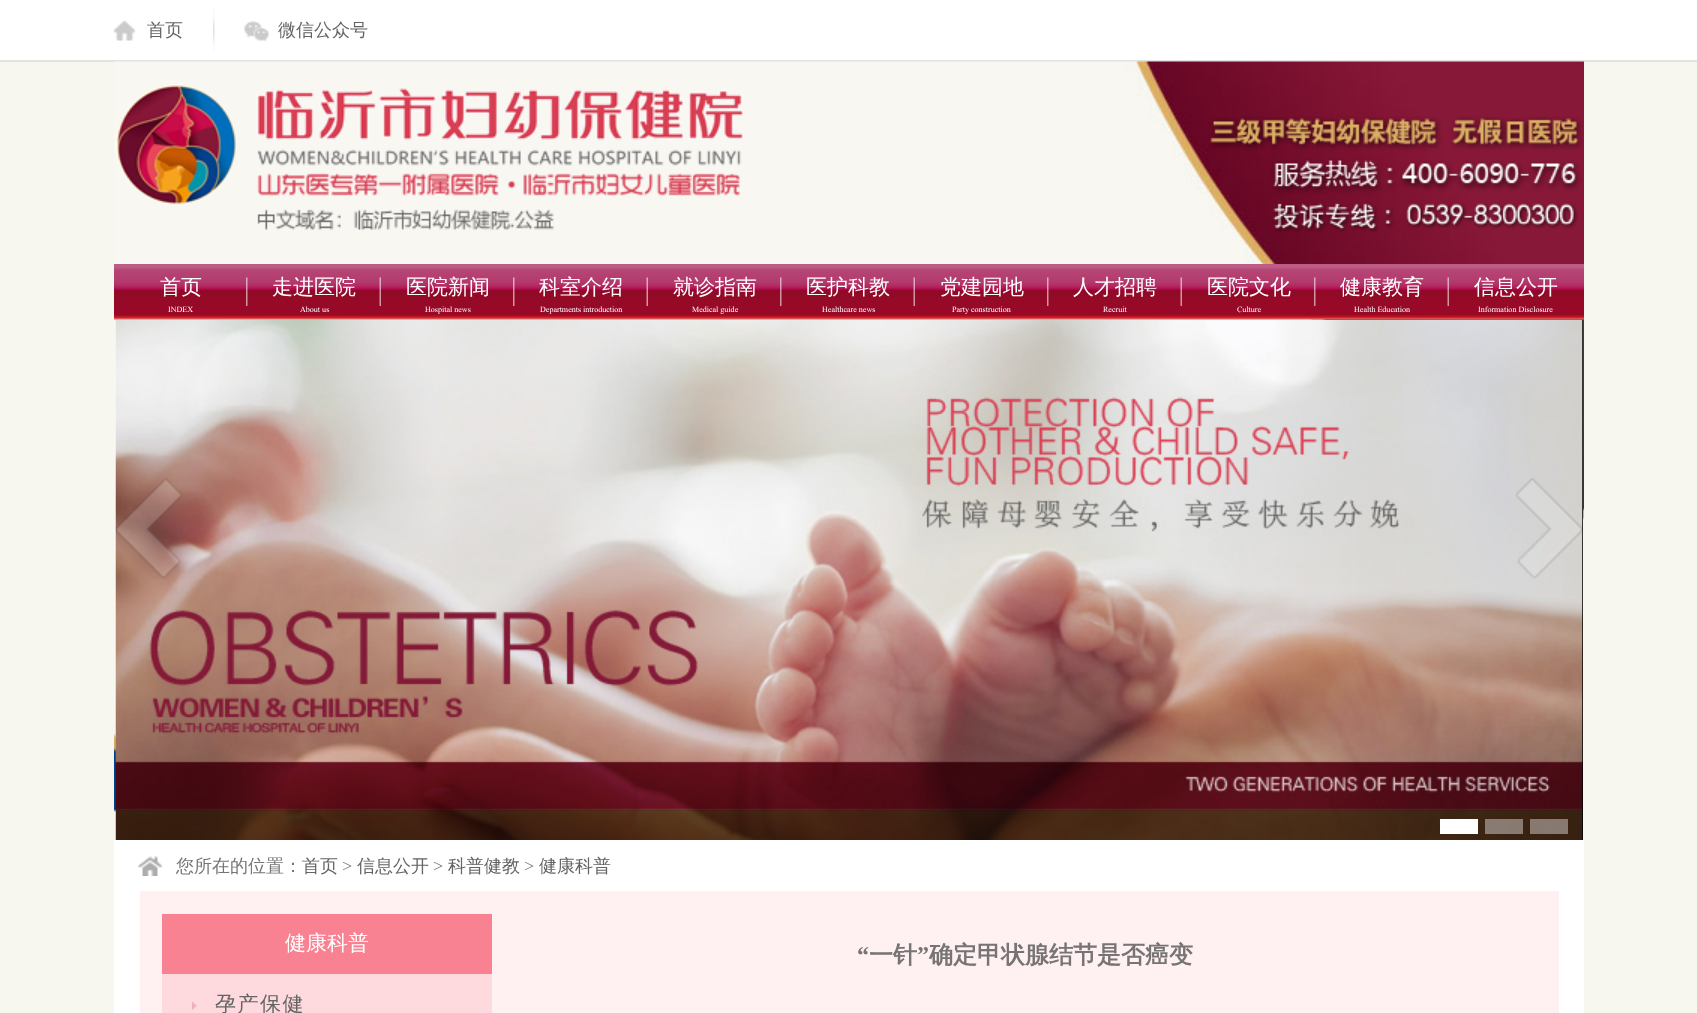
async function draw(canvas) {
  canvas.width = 1697
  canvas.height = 1013
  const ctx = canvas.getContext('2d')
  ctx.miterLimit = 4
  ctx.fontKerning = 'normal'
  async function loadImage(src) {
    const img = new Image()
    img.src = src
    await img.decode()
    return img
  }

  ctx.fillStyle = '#f7f7f0'
  ctx.fillRect(0, 0, 1697, 1013)
  ctx.fillStyle = '#fff'
  ctx.fillRect(0, 0, 1697, 60)
  ctx.fillStyle = '#e2e2e2'
  ctx.fillRect(0, 60, 1697, 2)
  ctx.drawImage(await loadImage('image0.png'), 114, 20, 22, 21)
  ctx.font = '500 18px WenQuanYi Zen Hei'
  ctx.fillStyle = '#656464'
  ctx.fillText('首页', 147, 36)
  ctx.drawImage(await loadImage('image1.png'), 213, 8, 2, 44)
  ctx.drawImage(await loadImage('image2.png'), 244, 21, 25, 21)
  ctx.fillText('微信公众号', 278, 36)
  ctx.drawImage(await loadImage('image3.png'), 114, 61, 1470, 751)
  ctx.drawImage(await loadImage('image4.png'), 115, 84, 629, 146)
  ctx.drawImage(await loadImage('image5.png'), 1209, 116, 374, 116)
  ctx.fillStyle = '#000'
  ctx.fillRect(1582, 320, 1, 520)
  ctx.drawImage(await loadImage('image9.png'), 115, 319, 1468, 521)
  ctx.drawImage(await loadImage('image6.png'), 114, 264, 1470, 56)
  ctx.drawImage(await loadImage('image7.png'), 246, 277, 2, 29)
  ctx.font = '500 21px WenQuanYi Zen Hei'
  ctx.fillStyle = '#fff'
  ctx.fillText('首页', 160, 294)
  ctx.font = '12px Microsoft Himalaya'
  ctx.fillText('INDEX', 168, 312)
  ctx.drawImage(await loadImage('image8.png'), 379, 277, 2, 29)
  ctx.font = '500 21px WenQuanYi Zen Hei'
  ctx.fillText('走进医院', 272, 294)
  ctx.font = '12px Microsoft Himalaya'
  ctx.fillText('About us', 300, 312)
  ctx.drawImage(await loadImage('image7.png'), 513, 277, 2, 29)
  ctx.font = '500 21px WenQuanYi Zen Hei'
  ctx.fillText('医院新闻', 406, 294)
  ctx.font = '12px Microsoft Himalaya'
  ctx.fillText('Hospital news', 425, 312)
  ctx.drawImage(await loadImage('image8.png'), 646, 277, 2, 29)
  ctx.font = '500 21px WenQuanYi Zen Hei'
  ctx.fillText('科室介绍', 539, 294)
  ctx.font = '12px Microsoft Himalaya'
  ctx.fillText('Departments introduction', 540, 312)
  ctx.drawImage(await loadImage('image7.png'), 780, 277, 2, 29)
  ctx.font = '500 21px WenQuanYi Zen Hei'
  ctx.fillText('就诊指南', 673, 294)
  ctx.font = '12px Microsoft Himalaya'
  ctx.fillText('Medical guide', 692, 312)
  ctx.drawImage(await loadImage('image8.png'), 913, 277, 2, 29)
  ctx.font = '500 21px WenQuanYi Zen Hei'
  ctx.fillText('医护科教', 806, 294)
  ctx.font = '12px Microsoft Himalaya'
  ctx.fillText('Healthcare news', 822, 312)
  ctx.drawImage(await loadImage('image7.png'), 1047, 277, 2, 29)
  ctx.font = '500 21px WenQuanYi Zen Hei'
  ctx.fillText('党建园地', 940, 294)
  ctx.font = '12px Microsoft Himalaya'
  ctx.fillText('Party construction', 952, 312)
  ctx.drawImage(await loadImage('image8.png'), 1180, 277, 2, 29)
  ctx.font = '500 21px WenQuanYi Zen Hei'
  ctx.fillText('人才招聘', 1073, 294)
  ctx.font = '12px Microsoft Himalaya'
  ctx.fillText('Recruit', 1103, 312)
  ctx.drawImage(await loadImage('image7.png'), 1314, 277, 2, 29)
  ctx.font = '500 21px WenQuanYi Zen Hei'
  ctx.fillText('医院文化', 1207, 294)
  ctx.font = '12px Microsoft Himalaya'
  ctx.fillText('Culture', 1237, 312)
  ctx.drawImage(await loadImage('image8.png'), 1447, 277, 2, 29)
  ctx.font = '500 21px WenQuanYi Zen Hei'
  ctx.fillText('健康教育', 1340, 294)
  ctx.font = '12px Microsoft Himalaya'
  ctx.fillText('Health Education', 1354, 312)
  ctx.font = '500 21px WenQuanYi Zen Hei'
  ctx.fillText('信息公开', 1474, 294)
  ctx.font = '12px Microsoft Himalaya'
  ctx.fillText('Information Disclosure', 1478, 312)
  ctx.drawImage(await loadImage('image10.png'), 115, 478, 68, 101)
  ctx.drawImage(await loadImage('image11.png'), 1515, 478, 67, 101)
  ctx.fillStyle = '#00000080'
  ctx.fillRect(116, 810, 1467, 30)
  ctx.fillStyle = '#fff'
  ctx.fillRect(1440, 819, 38, 15)
  ctx.fillStyle = '#ffffff66'
  ctx.fillRect(1485, 819, 38, 15)
  ctx.fillRect(1530, 819, 38, 15)
  ctx.fillStyle = '#fff'
  ctx.fillRect(114, 840, 1470, 173)
  ctx.drawImage(await loadImage('image12.png'), 138, 856, 24, 20)
  ctx.font = '500 18px WenQuanYi Zen Hei'
  ctx.fillStyle = '#767474'
  ctx.fillText('您所在的位置：', 176, 872)
  ctx.fillStyle = '#656464'
  ctx.fillText('首页', 302, 872)
  ctx.font = '18px Liberation Serif'
  ctx.fillStyle = '#767474'
  ctx.fillText('>', 342, 872)
  ctx.font = '500 18px WenQuanYi Zen Hei'
  ctx.fillStyle = '#656464'
  ctx.fillText('信息公开', 357, 872)
  ctx.font = '18px Liberation Serif'
  ctx.fillStyle = '#767474'
  ctx.fillText('>', 433, 872)
  ctx.font = '500 18px WenQuanYi Zen Hei'
  ctx.fillStyle = '#656464'
  ctx.fillText('科普健教', 448, 872)
  ctx.font = '18px Liberation Serif'
  ctx.fillStyle = '#767474'
  ctx.fillText('>', 524, 872)
  ctx.font = '500 18px WenQuanYi Zen Hei'
  ctx.fillStyle = '#656464'
  ctx.fillText('健康科普', 539, 872)
  ctx.fillStyle = '#fff0f2'
  ctx.fillRect(140, 891, 1419, 122)
  ctx.fillStyle = '#fedade'
  ctx.fillRect(162, 974, 330, 39)
  ctx.fillStyle = '#f98292'
  ctx.fillRect(162, 914, 330, 60)
  ctx.font = '500 21px WenQuanYi Zen Hei'
  ctx.fillStyle = '#fff'
  ctx.fillText('健康科普', 285, 950)
  ctx.drawImage(await loadImage('image13.png'), 192, 1002, 5, 8)
  ctx.letterSpacing = '1.5px'
  ctx.fillStyle = '#656464'
  ctx.fillText('孕产保健', 215, 1011)
  ctx.letterSpacing = '0px'
  ctx.font = 'bold 24px Liberation Serif'
  ctx.fillStyle = '#767474'
  ctx.fillText('“', 857, 963)
  ctx.font = 'bold 24px WenQuanYi Zen Hei'
  ctx.fillText('一针', 869, 963)
  ctx.font = 'bold 24px Liberation Serif'
  ctx.fillText('”', 917, 963)
  ctx.font = 'bold 24px WenQuanYi Zen Hei'
  ctx.fillText('确定甲状腺结节是否癌变', 929, 963)
}

draw(document.querySelector('canvas'))
